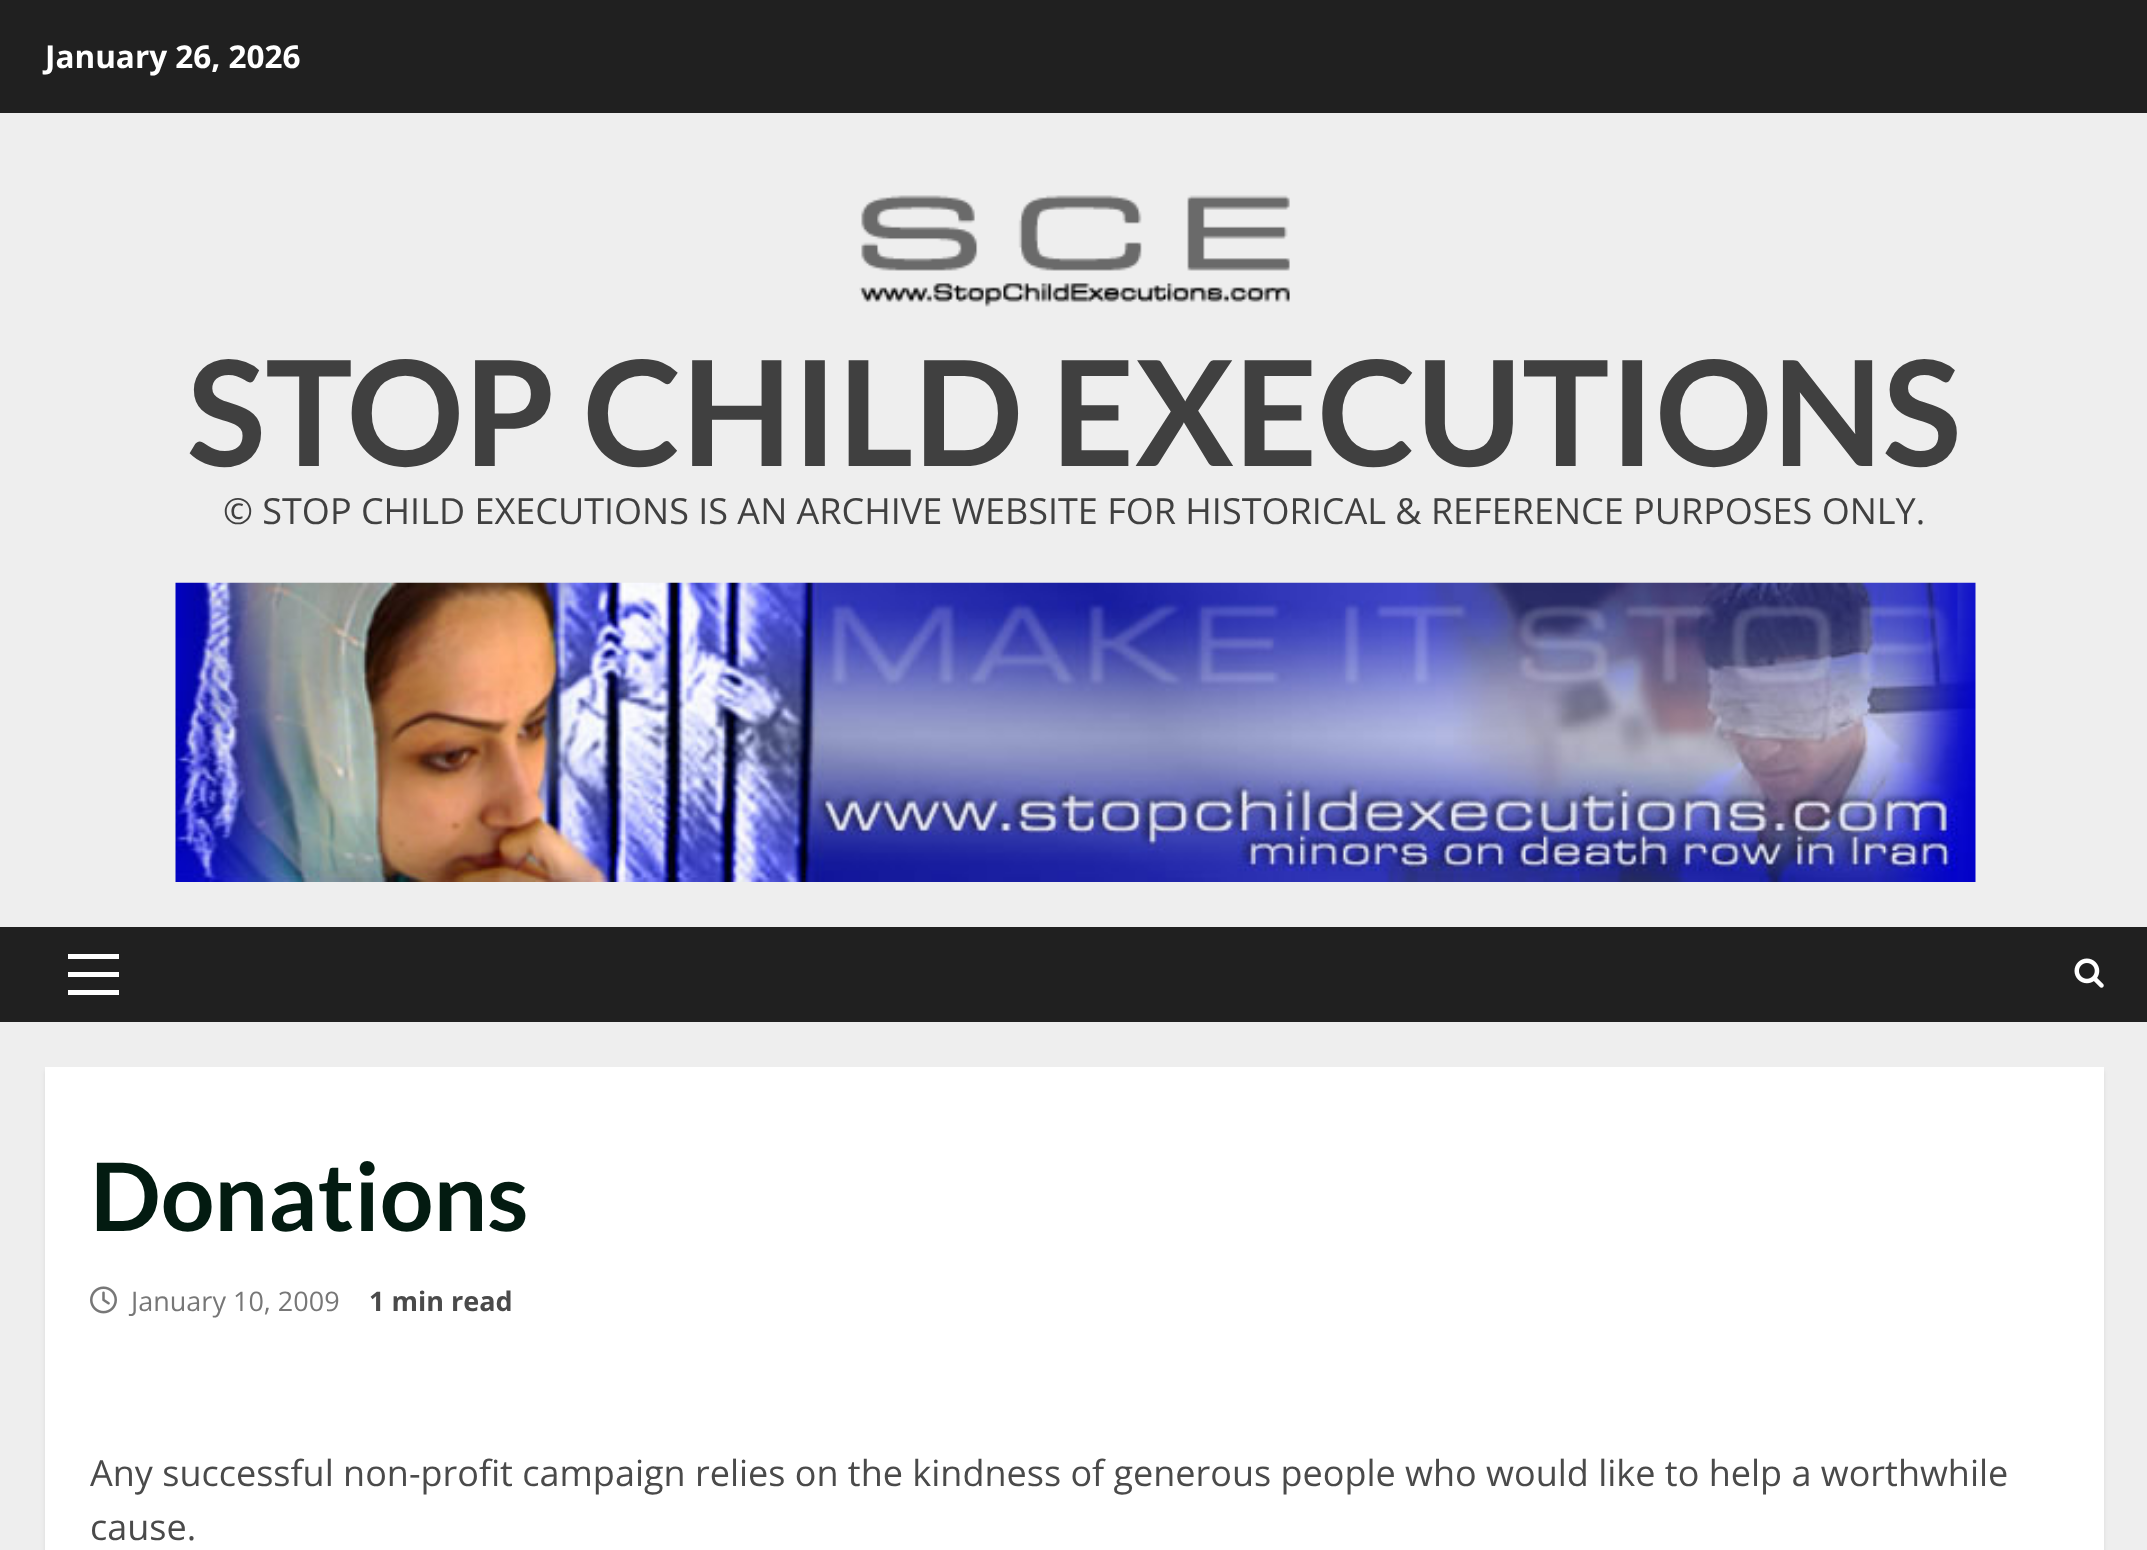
async function draw(canvas) {
  canvas.width = 2147
  canvas.height = 1550
  const ctx = canvas.getContext('2d')
  ctx.miterLimit = 4
  ctx.fontKerning = 'normal'
  async function loadImage(src) {
    const img = new Image()
    img.src = src
    await img.decode()
    return img
  }

  ctx.fillStyle = '#eee'
  ctx.fillRect(0, 0, 2147, 1550)
  ctx.fillStyle = '#202020'
  ctx.fillRect(0, 0, 2147, 113)
  ctx.font = 'bold 31.5px Open Sans'
  ctx.fillStyle = '#fff'
  ctx.fillText('January 26, 2026', 45, 68)
  ctx.drawImage(await loadImage('image0.png'), 859, 195, 431, 112)
  ctx.font = 'bold 146.25px Lato'
  ctx.fillStyle = '#404040'
  ctx.fillText('STOP CHILD EXECUTIONS', 187, 466)
  ctx.font = '36px Open Sans'
  ctx.fillText('© STOP CHILD EXECUTIONS IS AN ARCHIVE WEBSITE FOR HISTORICAL & REFERENCE PURPOSES ONLY.', 223, 524)
  ctx.drawImage(await loadImage('image1.png'), 175, 582, 1801, 300)
  ctx.fillStyle = '#202020'
  ctx.fillRect(0, 927, 2147, 95)
  ctx.fillStyle = '#fff'
  ctx.fillRect(68, 972, 51, 5)
  ctx.fillRect(68, 954, 51, 5)
  ctx.fillRect(68, 990, 51, 5)
  ctx.drawImage(await loadImage('image2.png'), 2074, 958, 30, 30)
  ctx.fillStyle = '#00000014'
  ctx.filter = 'blur(2px)'
  ctx.beginPath()
  ctx.rect(45, 1071, 2059, 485)
  ctx.fill()
  ctx.filter = 'none'
  ctx.fillStyle = '#fff'
  ctx.fillRect(45, 1067, 2059, 483)
  ctx.font = 'bold 94.5px Lato'
  ctx.fillStyle = '#031b11'
  ctx.fillText('Donations', 90, 1231)
  ctx.drawImage(await loadImage('image3.png'), 90, 1286, 27, 28)
  ctx.font = '27px Open Sans'
  ctx.fillStyle = '#777'
  ctx.fillText('January 10, 2009', 131, 1311)
  ctx.font = 'bold 27px Open Sans'
  ctx.fillStyle = '#4a4a4a'
  ctx.fillText('1 min read', 369, 1311)
  ctx.font = '36px Open Sans'
  ctx.fillText('Any successful non-profit campaign relies on the kindness of generous people who would like to help a worthwhile', 90, 1486)
  ctx.fillText('cause.', 90, 1540)
}

draw(document.querySelector('canvas'))
